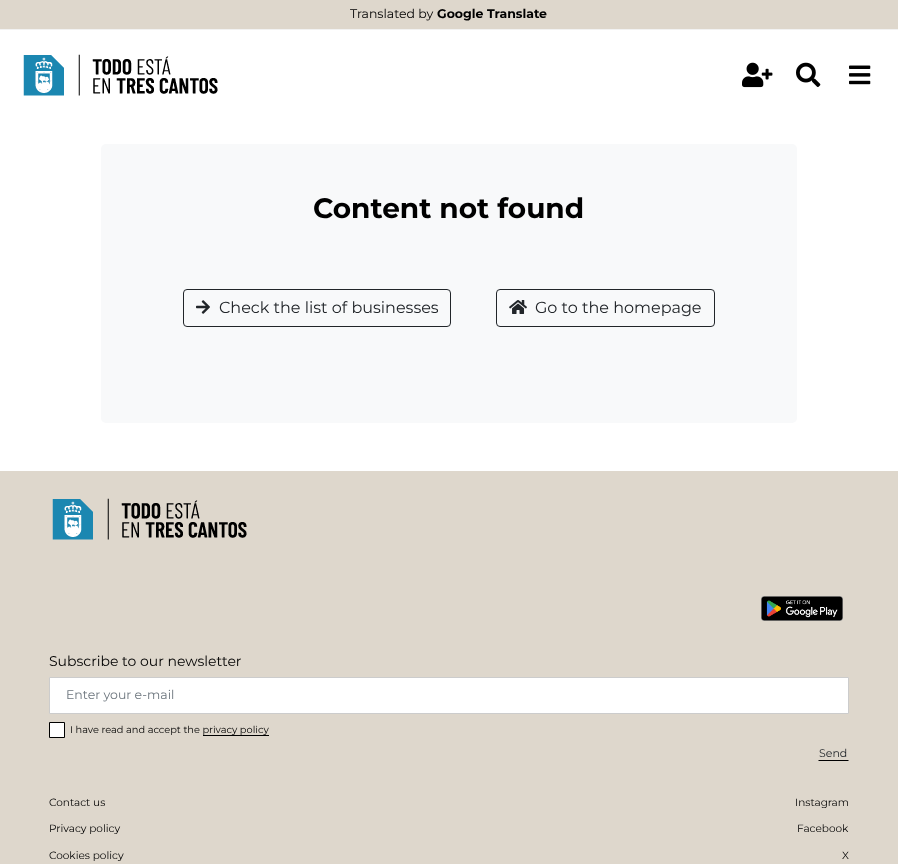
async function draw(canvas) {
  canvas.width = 898
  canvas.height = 864
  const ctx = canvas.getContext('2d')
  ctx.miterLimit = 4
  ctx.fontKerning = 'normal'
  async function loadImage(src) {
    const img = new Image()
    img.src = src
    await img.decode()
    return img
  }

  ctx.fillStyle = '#fff'
  ctx.fillRect(0, 0, 898, 864)
  ctx.fillStyle = '#ded7cc'
  ctx.fillRect(0, 0, 898, 29)
  ctx.fillStyle = '#f2f2f2'
  ctx.fillRect(0, 29, 898, 1)
  ctx.font = '12.5px Montserrat'
  ctx.fillStyle = '#000'
  ctx.fillText('Translated by', 350, 18)
  ctx.font = 'bold 12.5px Montserrat'
  ctx.fillText('Google Translate', 437, 18)
  ctx.drawImage(await loadImage('image0.png'), 23, 54, 195, 42)
  ctx.drawImage(await loadImage('image1.png'), 742, 62, 31, 26)
  ctx.drawImage(await loadImage('image2.png'), 796, 62, 25, 25)
  ctx.drawImage(await loadImage('image3.png'), 849, 65, 22, 20)
  ctx.fillStyle = '#f8f9fa'
  ctx.beginPath()
  ctx.roundRect(101, 144, 696, 279, 5)
  ctx.fill()
  ctx.font = 'bold 28px Montserrat'
  ctx.fillStyle = '#000'
  ctx.fillText('Content not found', 313, 218)
  ctx.beginPath()
  ctx.roundRect(183.5, 289.5, 267, 37, 3.5)
  ctx.strokeStyle = '#212529'
  ctx.stroke()
  ctx.drawImage(await loadImage('image4.png'), 196, 300, 14, 14)
  ctx.font = '16px Montserrat'
  ctx.fillStyle = '#212529'
  ctx.fillText('Check the list of businesses', 219, 313)
  ctx.beginPath()
  ctx.roundRect(496.5, 289.5, 218, 37, 3.5)
  ctx.stroke()
  ctx.drawImage(await loadImage('image5.png'), 509, 300, 18, 14)
  ctx.fillText('Go to the homepage', 535, 313)
  ctx.fillStyle = '#ded7cc'
  ctx.fillRect(0, 471, 898, 393)
  ctx.drawImage(await loadImage('image6.png'), 52, 498, 195, 42)
  ctx.drawImage(await loadImage('image7.png'), 761, 596, 82, 25)
  ctx.font = '14px Montserrat'
  ctx.fillStyle = '#000'
  ctx.fillText('Subscribe to our newsletter', 49, 666)
  ctx.fillStyle = '#fff'
  ctx.beginPath()
  ctx.rect(49.5, 677.5, 799, 36)
  ctx.fill()
  ctx.strokeStyle = '#ccc'
  ctx.stroke()
  ctx.font = '12.5px Montserrat'
  ctx.fillStyle = '#6c757d'
  ctx.fillText('Enter your e-mail', 66, 699)
  ctx.fillStyle = '#fff'
  ctx.beginPath()
  ctx.rect(49.5, 722.5, 15, 15)
  ctx.fill()
  ctx.strokeStyle = '#000'
  ctx.stroke()
  ctx.font = '9.8px Montserrat'
  ctx.fillStyle = '#000'
  ctx.fillText('I have read and accept the privacy policy', 70, 733)
  ctx.fillRect(203, 735, 66, 1)
  ctx.beginPath()
  ctx.moveTo(849, 761)
  ctx.lineTo(818, 761)
  ctx.lineTo(819, 760)
  ctx.lineTo(848, 760)
  ctx.closePath()
  ctx.fill()
  ctx.font = '11px Montserrat'
  ctx.fillStyle = '#212529'
  ctx.fillText('Send', 819, 757)
  ctx.font = '10.5px Montserrat'
  ctx.fillStyle = '#000'
  ctx.fillText('Contact us', 49, 806)
  ctx.fillText('Privacy policy', 49, 832)
  ctx.fillText('Cookies policy', 49, 859)
  ctx.fillText('Instagram', 795, 806)
  ctx.fillText('Facebook', 797, 832)
  ctx.fillText('X', 842, 859)
}

draw(document.querySelector('canvas'))
